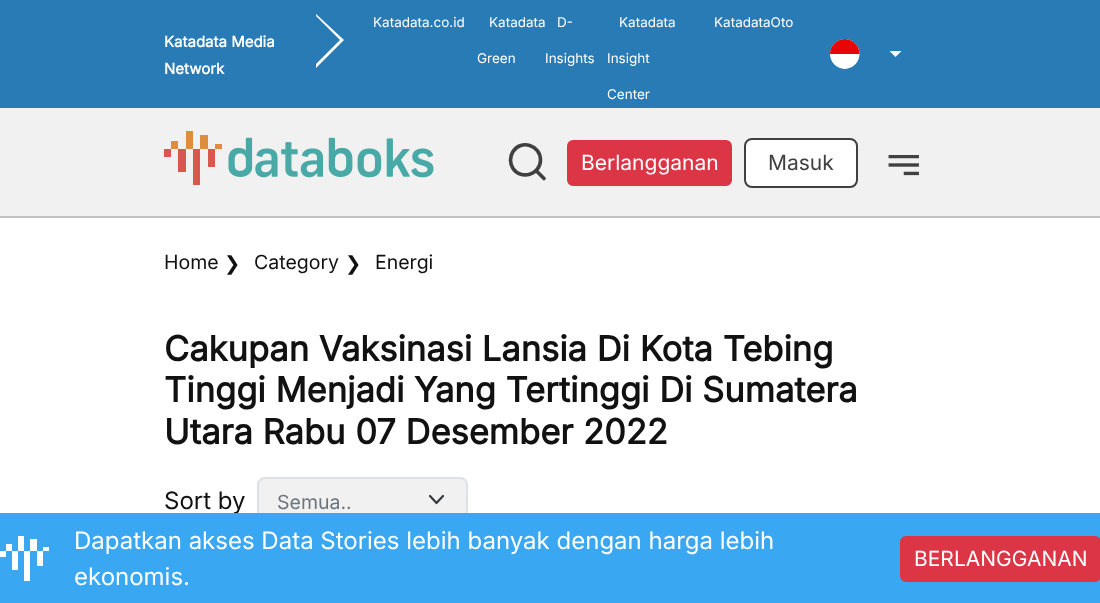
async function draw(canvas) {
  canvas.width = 1100
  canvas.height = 603
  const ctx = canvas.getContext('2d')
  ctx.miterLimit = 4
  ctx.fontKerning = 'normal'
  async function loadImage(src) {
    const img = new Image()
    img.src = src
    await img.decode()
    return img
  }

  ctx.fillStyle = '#fff'
  ctx.fillRect(0, 0, 1100, 603)
  ctx.fillStyle = '#c2c2c2'
  ctx.fillRect(0, 216, 1100, 2)
  ctx.fillStyle = '#287bb5'
  ctx.fillRect(0, 0, 1100, 108)
  ctx.fillStyle = '#fff'
  ctx.beginPath()
  ctx.moveTo(316, 68)
  ctx.lineTo(316, 14)
  ctx.lineTo(344, 40)
  ctx.closePath()
  ctx.fill()
  ctx.font = 'bold 15px Inter'
  ctx.fillText('Katadata Media', 164, 47)
  ctx.fillStyle = '#287bb5'
  ctx.beginPath()
  ctx.moveTo(316, 64)
  ctx.lineTo(316, 16)
  ctx.lineTo(340, 40)
  ctx.closePath()
  ctx.fill()
  ctx.fillStyle = '#fff'
  ctx.fillText('Network', 164, 74)
  ctx.font = '13.5px Inter'
  ctx.fillText('Katadata.co.id', 373, 27)
  ctx.fillText('Katadata', 489, 27)
  ctx.fillText('Green', 477, 63)
  ctx.fillText('D-', 557, 27)
  ctx.fillText('Insights', 545, 63)
  ctx.fillText('Katadata', 619, 27)
  ctx.fillText('Insight', 607, 63)
  ctx.fillText('Center', 607, 99)
  ctx.fillText('KatadataOto', 714, 27)
  ctx.drawImage(await loadImage('image0.png'), 830, 39, 30, 30)
  ctx.beginPath()
  ctx.moveTo(889.5, 51)
  ctx.lineTo(901.5, 51)
  ctx.lineTo(895.5, 57)
  ctx.closePath()
  ctx.fill()
  ctx.fillStyle = '#f2f1f1'
  ctx.fillRect(0, 108, 1100, 108)
  ctx.drawImage(await loadImage('image1.png'), 164, 131, 270, 54)
  ctx.beginPath()
  ctx.moveTo(544, 178.5)
  ctx.lineTo(536, 170.5)
  ctx.moveTo(540.5, 160)
  ctx.bezierCurveTo(540.5, 174.5, 521, 180.5, 513, 168.5)
  ctx.bezierCurveTo(511.5, 166, 510.5, 163, 510.5, 160)
  ctx.bezierCurveTo(510.5, 157, 511.5, 154, 513, 151.5)
  ctx.bezierCurveTo(521, 139, 540.5, 145, 540.5, 160)
  ctx.closePath()
  ctx.strokeStyle = '#404040'
  ctx.lineWidth = 3.6
  ctx.lineCap = 'round'
  ctx.stroke()
  ctx.fillStyle = '#dc3545'
  ctx.beginPath()
  ctx.roundRect(568, 141, 163, 44, 5)
  ctx.fill()
  ctx.strokeStyle = '#dc3545'
  ctx.lineWidth = 2
  ctx.stroke()
  ctx.font = '21px Inter'
  ctx.fillStyle = '#fff'
  ctx.fillText('Berlangganan', 581, 170)
  ctx.beginPath()
  ctx.roundRect(745, 139, 112, 48, 7)
  ctx.fill()
  ctx.strokeStyle = '#404040'
  ctx.stroke()
  ctx.fillStyle = '#404040'
  ctx.fillText('Masuk', 768, 170)
  ctx.drawImage(await loadImage('image2.png'), 888, 155, 31, 21)
  ctx.font = '19.5px Inter'
  ctx.fillStyle = '#111'
  ctx.fillText('Home', 164, 269)
  ctx.font = '19.5px DejaVu Sans'
  ctx.fillText('❯', 224, 270)
  ctx.font = '19.5px Inter'
  ctx.fillText('Category', 254, 269)
  ctx.font = '19.5px DejaVu Sans'
  ctx.fillText('❯', 345, 270)
  ctx.font = '19.5px Inter'
  ctx.fillText('Energi', 375, 269)
  ctx.font = 'bold 34.5px Inter'
  ctx.fillText('Cakupan Vaksinasi Lansia Di Kota Tebing', 164, 361)
  ctx.fillText('Tinggi Menjadi Yang Tertinggi Di Sumatera', 164, 402)
  ctx.fillText('Utara Rabu 07 Desember 2022', 164, 444)
  ctx.font = '24px Inter'
  ctx.fillText('Sort by', 164, 509)
  ctx.fillStyle = '#f2f1f1'
  ctx.beginPath()
  ctx.roundRect(257, 477, 211, 45, 8)
  ctx.fill()
  ctx.beginPath()
  ctx.moveTo(430, 496)
  ctx.lineTo(436.5, 503)
  ctx.lineTo(443, 496)
  ctx.strokeStyle = '#343a40'
  ctx.lineWidth = 2.2
  ctx.lineJoin = 'round'
  ctx.stroke()
  ctx.beginPath()
  ctx.roundRect(258, 478, 209, 43, 7)
  ctx.strokeStyle = '#dee2e6'
  ctx.lineWidth = 2
  ctx.lineJoin = 'miter'
  ctx.stroke()
  ctx.font = '19.5px Inter'
  ctx.fillStyle = '#6c757d'
  ctx.fillText('Semua..', 277, 509)
  ctx.fillStyle = '#39a7f2'
  ctx.fillRect(0, 513, 1100, 90)
  ctx.fillStyle = '#fff'
  ctx.fillRect(37, 551, 6, 15)
  ctx.fillRect(43, 547, 6, 4)
  ctx.fillRect(24, 551, 6, 30)
  ctx.fillRect(30, 539, 7, 12)
  ctx.fillRect(12, 551, 6, 19)
  ctx.fillRect(18, 536, 6, 15)
  ctx.fillRect(0, 551, 6, 6)
  ctx.fillRect(6, 544, 6, 7)
  ctx.font = '24px Inter'
  ctx.fillText('Dapatkan akses Data Stories lebih banyak dengan harga lebih', 74, 549)
  ctx.fillText('ekonomis.', 74, 585)
  ctx.fillStyle = '#dc3545'
  ctx.beginPath()
  ctx.roundRect(901, 537, 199, 44, 5)
  ctx.fill()
  ctx.strokeStyle = '#dc3545'
  ctx.stroke()
  ctx.font = '21px Inter'
  ctx.fillStyle = '#fff'
  ctx.fillText('BERLANGGANAN', 914, 566)
}

draw(document.querySelector('canvas'))
